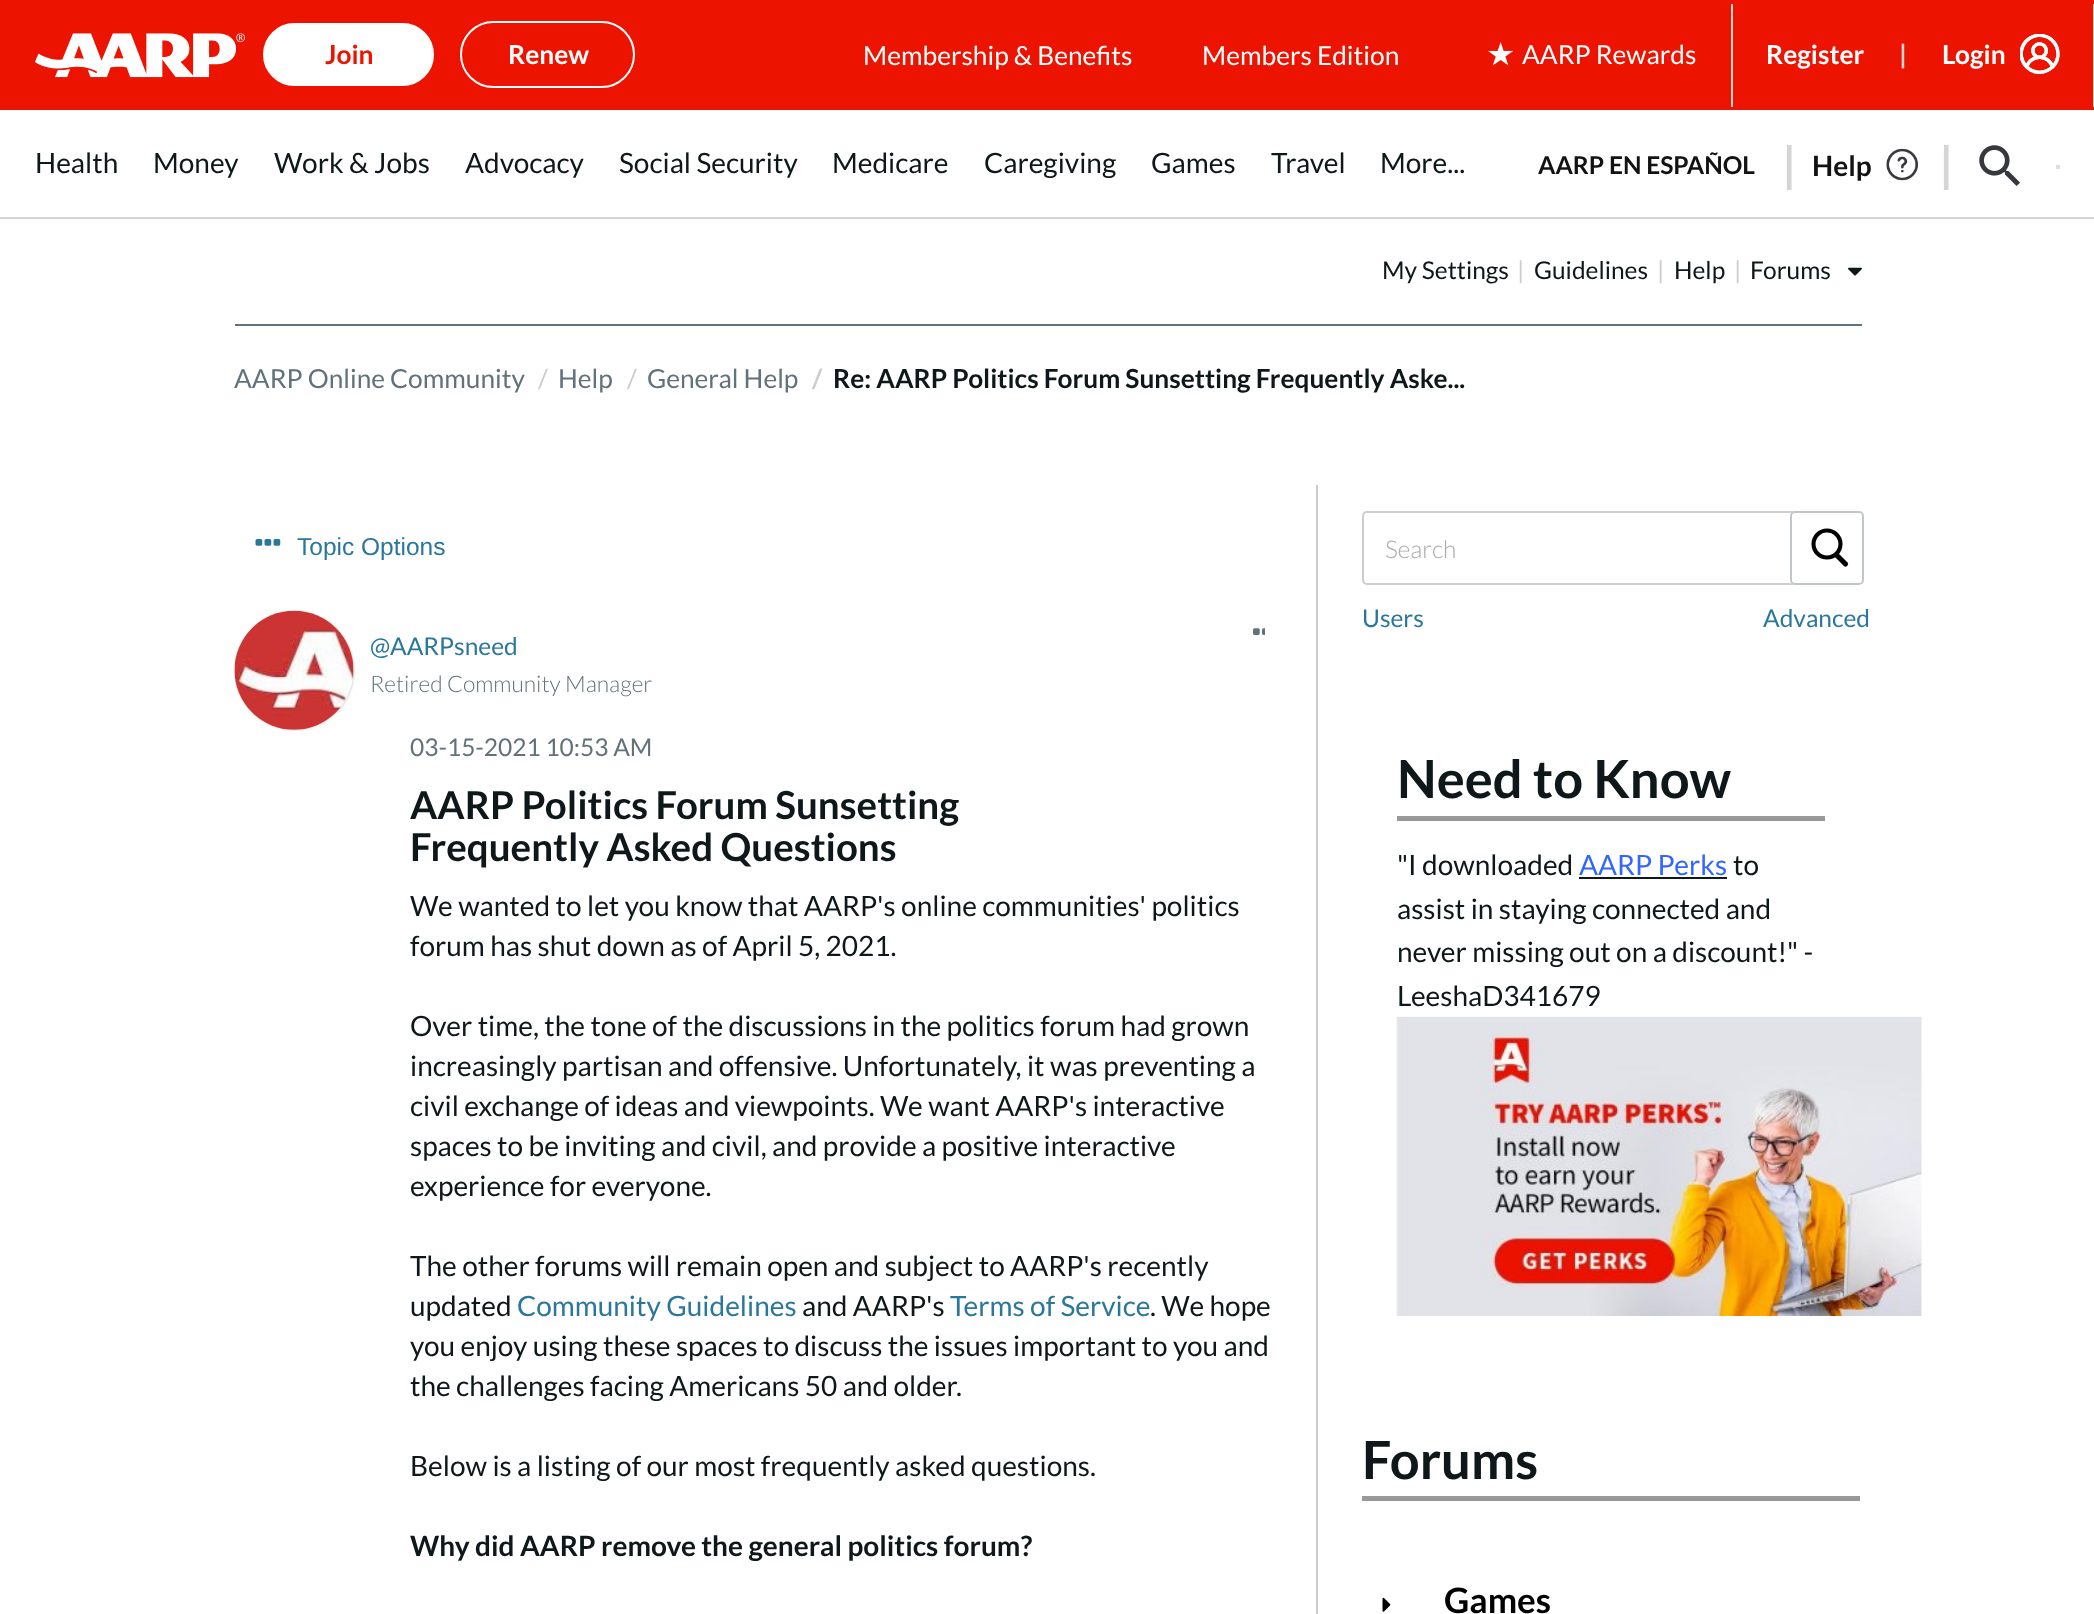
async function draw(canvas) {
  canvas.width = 2094
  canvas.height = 1614
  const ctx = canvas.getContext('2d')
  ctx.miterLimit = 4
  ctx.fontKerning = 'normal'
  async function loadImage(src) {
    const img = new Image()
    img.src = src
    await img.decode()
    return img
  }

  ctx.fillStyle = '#fff'
  ctx.fillRect(0, 0, 2094, 1614)
  ctx.fillStyle = '#ec1300'
  ctx.fillRect(0, 0, 2094, 110)
  ctx.drawImage(await loadImage('image0.png'), 35, 33, 210, 45)
  ctx.fillStyle = '#fff'
  ctx.beginPath()
  ctx.roundRect(262, 22, 173, 65, 32.5)
  ctx.fill()
  ctx.strokeStyle = '#ec1300'
  ctx.lineWidth = 2
  ctx.stroke()
  ctx.font = 'bold 26.25px Lato'
  ctx.fillStyle = '#ec1300'
  ctx.fillText('Join', 325, 64)
  ctx.beginPath()
  ctx.roundRect(461, 22, 173, 65, 32.5)
  ctx.strokeStyle = '#fff'
  ctx.stroke()
  ctx.fillStyle = '#fff'
  ctx.fillText('Renew', 508, 64)
  ctx.font = '26.25px Lato'
  ctx.fillText('Membership & Benefits', 863, 65)
  ctx.fillText('Members Edition', 1202, 65)
  ctx.fillStyle = '#d5d5d5'
  ctx.fillRect(1731, 4, 2, 103)
  ctx.drawImage(await loadImage('image1.png'), 1488, 42, 25, 24)
  ctx.fillStyle = '#fff'
  ctx.fillText('AARP Rewards', 1522, 64)
  ctx.font = 'bold 26.25px Lato'
  ctx.fillText('Register', 1766, 64)
  ctx.fillStyle = '#d5d5d5'
  ctx.fillText('|', 1899, 64)
  ctx.fillRect(2093, 4, 1, 103)
  ctx.fillStyle = '#fff'
  ctx.fillText('Login', 1942, 64)
  ctx.drawImage(await loadImage('image2.png'), 2020, 34, 40, 40)
  ctx.fillStyle = '#d5d5d5'
  ctx.fillRect(0, 217, 2094, 2)
  ctx.font = '28px Lato'
  ctx.fillStyle = '#0e1719'
  ctx.fillText('Health', 35, 173)
  ctx.fillText('Money', 153, 173)
  ctx.fillText('Work & Jobs', 274, 173)
  ctx.fillText('Advocacy', 465, 173)
  ctx.fillText('Social Security', 619, 173)
  ctx.fillText('Medicare', 832, 173)
  ctx.fillText('Caregiving', 984, 173)
  ctx.fillText('Games', 1151, 173)
  ctx.fillText('Travel', 1271, 173)
  ctx.fillText('More...', 1380, 173)
  ctx.font = 'bold 24.5px Lato'
  ctx.fillStyle = '#121212'
  ctx.fillText('AARP EN ESPAÑOL', 1538, 174)
  ctx.letterSpacing = '-6px'
  ctx.font = 'bold 48px Lato'
  ctx.fillStyle = '#d5d5d5'
  ctx.fillText('|', 1782, 182)
  ctx.letterSpacing = '0px'
  ctx.font = 'bold 28px Lato'
  ctx.fillStyle = '#121212'
  ctx.fillText('Help', 1812, 176)
  ctx.drawImage(await loadImage('image3.png'), 1886, 148, 32, 33)
  ctx.letterSpacing = '-6px'
  ctx.font = 'bold 48px Lato'
  ctx.fillStyle = '#d5d5d5'
  ctx.fillText('|', 1939, 182)
  ctx.drawImage(await loadImage('image4.png'), 1979, 145, 41, 41)
  ctx.fillStyle = '#dfdfdf'
  ctx.fillRect(2056, 165, 4, 4)
  ctx.letterSpacing = '0px'
  ctx.font = '24.5px Lato'
  ctx.fillStyle = '#0e1719'
  ctx.fillText('My Settings', 1382, 279)
  ctx.fillStyle = '#ccc'
  ctx.fillText('|', 1517, 279)
  ctx.fillStyle = '#0e1719'
  ctx.fillText('Guidelines', 1534, 279)
  ctx.fillStyle = '#ccc'
  ctx.fillText('|', 1657, 279)
  ctx.fillStyle = '#0e1719'
  ctx.fillText('Help', 1674, 279)
  ctx.fillStyle = '#ccc'
  ctx.fillText('|', 1734, 279)
  ctx.fillStyle = '#0e1719'
  ctx.fillText('Forums', 1750, 279)
  ctx.drawImage(await loadImage('image5.png'), 1848, 267, 14, 9)
  ctx.fillStyle = '#62727b'
  ctx.fillRect(235, 324, 1627, 2)
  ctx.font = '26.25px Lato'
  ctx.fillText('AARP Online Community', 234, 388)
  ctx.fillStyle = '#ccc'
  ctx.fillText('/', 538, 388)
  ctx.fillStyle = '#62727b'
  ctx.fillText('Help', 558, 388)
  ctx.fillStyle = '#ccc'
  ctx.fillText('/', 627, 388)
  ctx.fillStyle = '#62727b'
  ctx.fillText('General Help', 647, 388)
  ctx.font = 'bold 26.25px Lato'
  ctx.fillStyle = '#ccc'
  ctx.fillText('/', 812, 388)
  ctx.fillStyle = '#0e1719'
  ctx.fillText('Re: AARP Politics Forum Sunsetting Frequently Aske...', 833, 388)
  ctx.fillStyle = '#ccc'
  ctx.fillRect(1316, 485, 2, 1129)
  ctx.drawImage(await loadImage('image6.png'), 255, 539, 26, 7)
  ctx.font = '24.5px Liberation Sans'
  ctx.fillStyle = '#2b779b'
  ctx.fillText('Topic Options', 297, 555)
  ctx.fillStyle = '#ccc'
  ctx.filter = 'blur(1px)'
  ctx.beginPath()
  ctx.roundRect(235, 611, 119, 119, 59.5)
  ctx.fill()
  ctx.filter = 'none'
  ctx.drawImage(await loadImage('image7.png'), 234, 610, 120, 120)
  ctx.drawImage(await loadImage('image8.png'), 1253, 628, 12, 7)
  ctx.font = '24.5px Lato'
  ctx.fillStyle = '#2b779b'
  ctx.fillText('@', 370, 655)
  ctx.fillText('AARPsneed', 390, 655)
  ctx.font = '300 22.75px Lato'
  ctx.fillStyle = '#62727b'
  ctx.fillText('Retired Community Manager', 370, 692)
  ctx.font = '24.5px Lato'
  ctx.fillText('03-15-2021 10:53 AM', 410, 756)
  ctx.font = 'bold 38.5px Lato'
  ctx.fillStyle = '#0e1719'
  ctx.fillText('AARP Politics Forum Sunsetting', 410, 819)
  ctx.fillText('Frequently Asked Questions', 410, 861)
  ctx.font = '28px Lato'
  ctx.fillText('We wanted to let you know that AARP\'s online communities\' politics', 410, 916)
  ctx.fillText('forum has shut down as of April 5, 2021.', 410, 956)
  ctx.fillText('Over time, the tone of the discussions in the politics forum had grown', 410, 1036)
  ctx.fillText('increasingly partisan and offensive. Unfortunately, it was preventing a', 410, 1076)
  ctx.fillText('civil exchange of ideas and viewpoints. We want AARP\'s interactive', 410, 1116)
  ctx.fillText('spaces to be inviting and civil, and provide a positive interactive', 410, 1156)
  ctx.fillText('experience for everyone.', 410, 1196)
  ctx.fillText('The other forums will remain open and subject to AARP\'s recently', 410, 1276)
  ctx.fillText('updated', 410, 1316)
  ctx.fillStyle = '#2b779b'
  ctx.fillText('Community Guidelines', 517, 1316)
  ctx.fillStyle = '#0e1719'
  ctx.fillText('and AARP\'s', 802, 1316)
  ctx.fillStyle = '#2b779b'
  ctx.fillText('Terms of Service', 950, 1316)
  ctx.fillStyle = '#0e1719'
  ctx.fillText('. We hope', 1150, 1316)
  ctx.fillText('you enjoy using these spaces to discuss the issues important to you and', 410, 1356)
  ctx.fillText('the challenges facing Americans 50 and older.', 410, 1396)
  ctx.fillText('Below is a listing of our most frequently asked questions.', 410, 1476)
  ctx.font = 'bold 28px Lato'
  ctx.fillText('Why did AARP remove the general politics forum?', 410, 1556)
  ctx.beginPath()
  ctx.roundRect(1363, 512, 496, 72, 4)
  ctx.strokeStyle = '#ccc'
  ctx.stroke()
  ctx.font = '300 24.5px Lato'
  ctx.fillStyle = '#a9a9a9'
  ctx.fillText('Search', 1385, 558)
  ctx.fillStyle = '#fff'
  ctx.beginPath()
  ctx.roundRect(1790, 511, 74, 74, 5)
  ctx.fill()
  ctx.beginPath()
  ctx.arc(1827, 544, 13.5, 0, 2 * Math.PI)
  ctx.strokeStyle = '#000'
  ctx.lineWidth = 4.1
  ctx.stroke()
  ctx.beginPath()
  ctx.moveTo(1837, 555.5)
  ctx.lineTo(1845.5, 564)
  ctx.lineWidth = 5.1
  ctx.lineCap = 'round'
  ctx.stroke()
  ctx.beginPath()
  ctx.roundRect(1791, 512, 72, 72, 4)
  ctx.strokeStyle = '#c1c7cb'
  ctx.lineWidth = 2
  ctx.stroke()
  ctx.font = '24.5px Lato'
  ctx.fillStyle = '#2b779b'
  ctx.fillText('Users', 1362, 627)
  ctx.fillText('Advanced', 1763, 627)
  ctx.fillStyle = '#999'
  ctx.fillRect(1397, 816, 428, 5)
  ctx.font = 'bold 52.5px Lato'
  ctx.fillStyle = '#0e1719'
  ctx.fillText('Need to Know', 1397, 798)
  ctx.font = '28px Lato'
  ctx.fillText('"I downloaded', 1397, 875)
  ctx.fillStyle = '#36f'
  ctx.fillText('AARP Perks', 1579, 875)
  ctx.fillStyle = '#0e1719'
  ctx.fillRect(1579, 877, 148, 2)
  ctx.fillText('to', 1733, 875)
  ctx.fillText('assist in staying connected and', 1397, 919)
  ctx.fillText('never missing out on a discount!" -', 1397, 962)
  ctx.fillText('LeeshaD341679', 1397, 1006)
  ctx.drawImage(await loadImage('image9.png'), 1396, 1016, 526, 300)
  ctx.fillStyle = '#999'
  ctx.fillRect(1362, 1496, 498, 5)
  ctx.font = 'bold 52.5px Lato'
  ctx.fillStyle = '#0e1719'
  ctx.fillText('Forums', 1362, 1479)
  ctx.drawImage(await loadImage('image10.png'), 1382, 1597, 9, 15)
  ctx.font = 'bold 35px Lato'
  ctx.fillStyle = '#000'
  ctx.fillText('Games', 1444, 1613)
}

draw(document.querySelector('canvas'))
